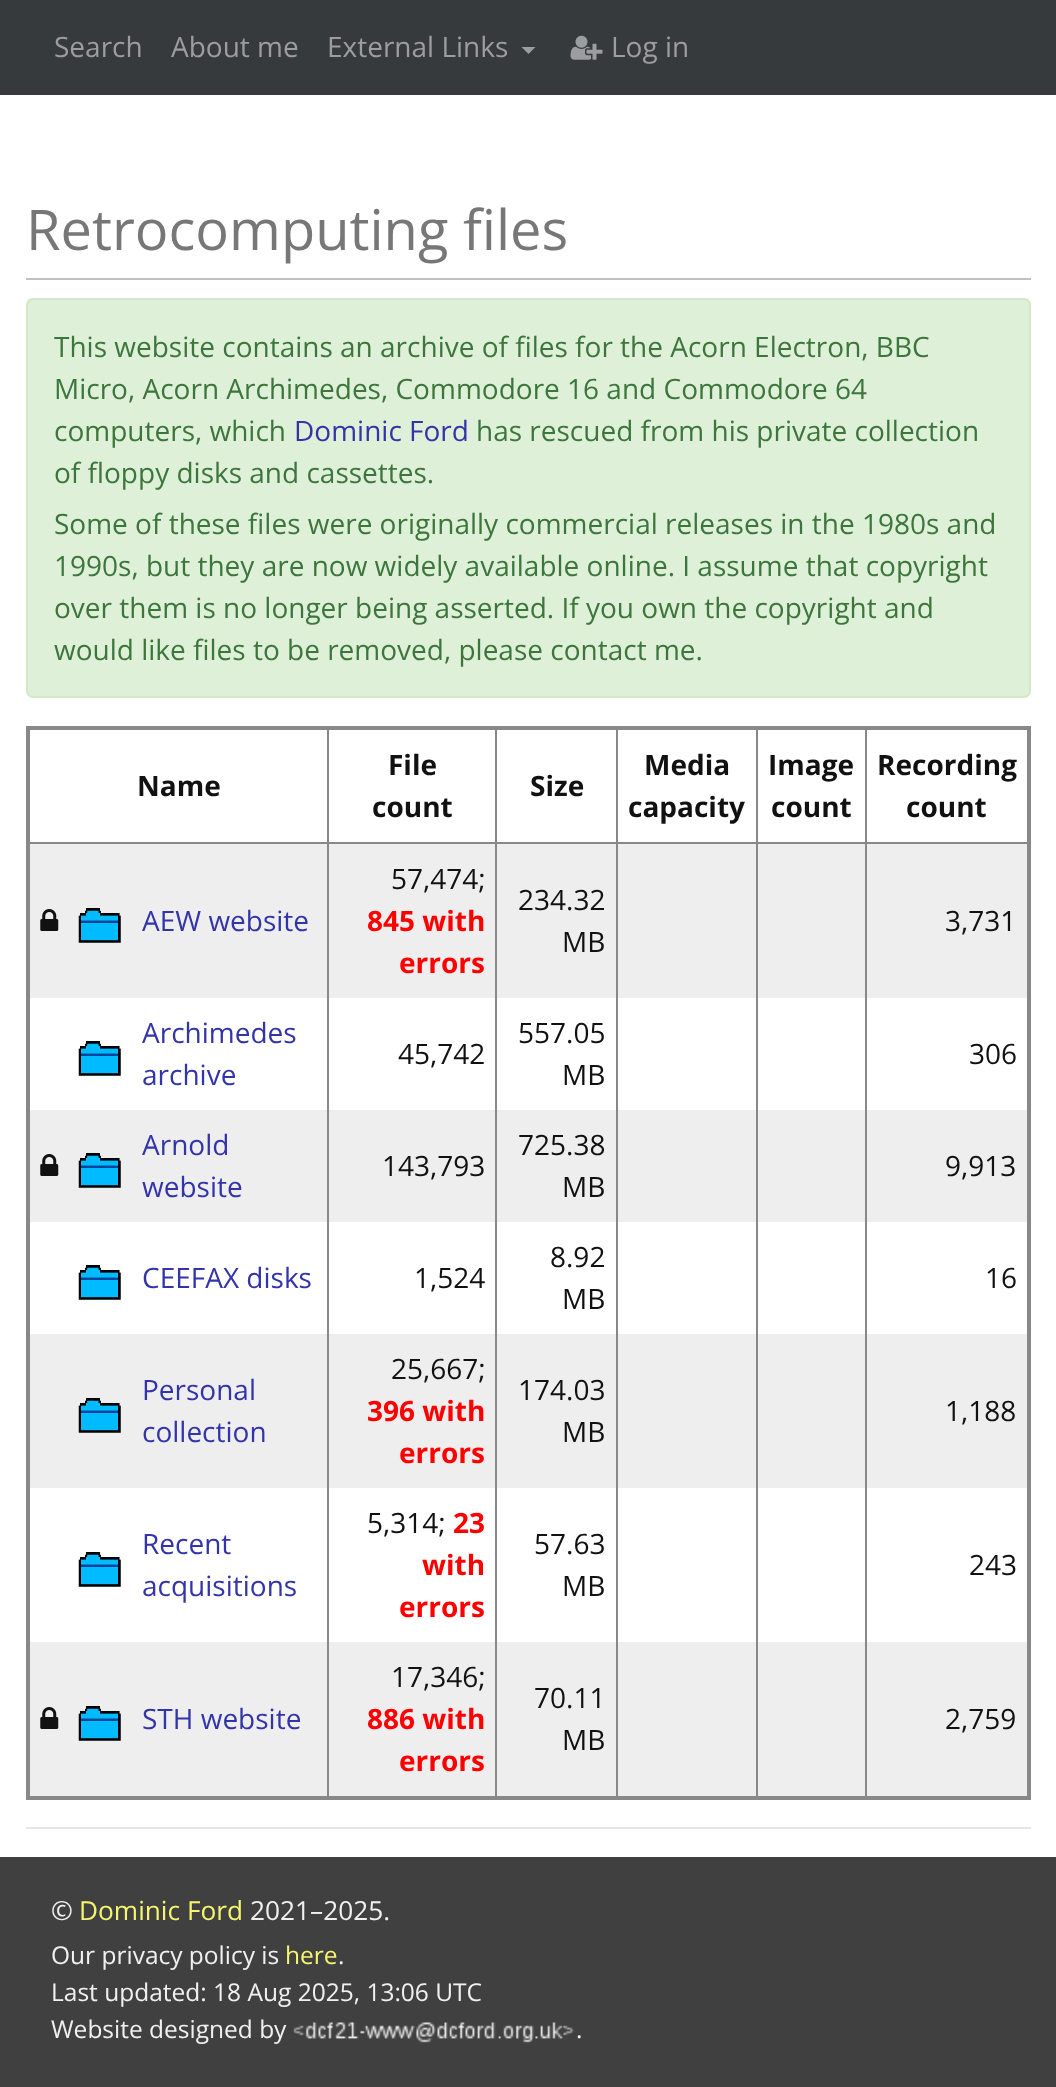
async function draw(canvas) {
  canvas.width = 1056
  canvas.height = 2087
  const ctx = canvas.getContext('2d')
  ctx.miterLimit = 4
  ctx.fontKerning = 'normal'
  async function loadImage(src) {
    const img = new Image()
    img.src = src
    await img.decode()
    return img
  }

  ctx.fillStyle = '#fff'
  ctx.fillRect(0, 0, 1056, 2087)
  ctx.fillStyle = '#373a3c'
  ctx.fillRect(0, 0, 1056, 95)
  ctx.font = '28px Open Sans'
  ctx.fillStyle = '#9b9d9e'
  ctx.fillText('Search', 54, 57)
  ctx.fillText('About me', 171, 57)
  ctx.fillText('External Links', 327, 57)
  ctx.beginPath()
  ctx.moveTo(521.5, 47)
  ctx.lineTo(535.5, 47)
  ctx.lineTo(528.5, 54)
  ctx.closePath()
  ctx.fill()
  ctx.drawImage(await loadImage('image0.png'), 570, 35, 33, 25)
  ctx.fillText('Log in', 611, 57)
  ctx.fillStyle = '#c0c0c0'
  ctx.fillRect(26, 278, 1005, 2)
  ctx.font = '56px Open Sans'
  ctx.fillStyle = '#777'
  ctx.fillText('Retrocomputing files', 26, 250)
  ctx.fillStyle = '#dff0d8'
  ctx.beginPath()
  ctx.roundRect(27, 299, 1003, 398, 6)
  ctx.fill()
  ctx.strokeStyle = '#d0e9c6'
  ctx.lineWidth = 2
  ctx.stroke()
  ctx.font = '28px Open Sans'
  ctx.fillStyle = '#3c763d'
  ctx.fillText('This website contains an archive of files for the Acorn Electron, BBC', 54, 357)
  ctx.fillText('Micro, Acorn Archimedes, Commodore 16 and Commodore 64', 54, 399)
  ctx.fillText('computers, which', 54, 441)
  ctx.fillStyle = '#33a'
  ctx.fillText('Dominic Ford', 294, 441)
  ctx.fillStyle = '#3c763d'
  ctx.fillText('has rescued from his private collection', 476, 441)
  ctx.fillText('of floppy disks and cassettes.', 54, 483)
  ctx.fillText('Some of these files were originally commercial releases in the 1980s and', 54, 534)
  ctx.fillText('1990s, but they are now widely available online. I assume that copyright', 54, 576)
  ctx.fillText('over them is no longer being asserted. If you own the copyright and', 54, 618)
  ctx.fillText('would like files to be removed, please contact me.', 54, 660)
  ctx.fillStyle = '#eee'
  ctx.fillRect(30, 844, 997, 154)
  ctx.fillRect(30, 1110, 997, 112)
  ctx.fillRect(30, 1334, 997, 154)
  ctx.fillRect(30, 1642, 997, 154)
  ctx.fillStyle = '#888'
  ctx.fillRect(865, 842, 2, 957)
  ctx.fillRect(865, 842, 166, 2)
  ctx.fillRect(865, 728, 2, 116)
  ctx.fillRect(756, 842, 2, 957)
  ctx.fillRect(756, 842, 110, 2)
  ctx.fillRect(756, 728, 2, 116)
  ctx.fillRect(616, 842, 2, 957)
  ctx.fillRect(616, 842, 142, 2)
  ctx.fillRect(616, 728, 2, 116)
  ctx.fillRect(495, 842, 2, 957)
  ctx.fillRect(495, 842, 123, 2)
  ctx.fillRect(495, 728, 2, 116)
  ctx.fillRect(327, 842, 2, 957)
  ctx.fillRect(327, 842, 170, 2)
  ctx.fillRect(327, 728, 2, 116)
  ctx.fillRect(26, 726, 1005, 4)
  ctx.fillRect(1027, 726, 4, 1073)
  ctx.fillRect(26, 1796, 1005, 4)
  ctx.fillRect(28, 842, 301, 2)
  ctx.fillRect(26, 726, 4, 1073)
  ctx.font = 'bold 28px Open Sans'
  ctx.fillStyle = '#111'
  ctx.fillText('Name', 137, 796)
  ctx.fillText('File', 388, 775)
  ctx.fillText('count', 372, 817)
  ctx.fillText('Size', 530, 796)
  ctx.fillText('Media', 644, 775)
  ctx.fillText('capacity', 628, 817)
  ctx.fillText('Image', 768, 775)
  ctx.fillText('count', 771, 817)
  ctx.fillText('Recording', 877, 775)
  ctx.fillText('count', 906, 817)
  ctx.drawImage(await loadImage('image1.png'), 40, 909, 19, 22)
  ctx.drawImage(await loadImage('image2.png'), 78, 908, 43, 35)
  ctx.font = '28px Open Sans'
  ctx.fillStyle = '#33a'
  ctx.fillText('AEW website', 142, 931)
  ctx.fillStyle = '#111'
  ctx.fillText('57,474;', 391, 889)
  ctx.font = 'bold 28px Open Sans'
  ctx.fillStyle = '#f00'
  ctx.fillText('845 with', 367, 931)
  ctx.fillText('errors', 399, 973)
  ctx.font = '28px Open Sans'
  ctx.fillStyle = '#111'
  ctx.fillText('234.32', 518, 910)
  ctx.fillText('MB', 562, 952)
  ctx.fillText('3,731', 945, 931)
  ctx.drawImage(await loadImage('image3.png'), 78, 1041, 43, 35)
  ctx.fillStyle = '#33a'
  ctx.fillText('Archimedes', 142, 1043)
  ctx.fillText('archive', 142, 1085)
  ctx.fillStyle = '#111'
  ctx.fillText('45,742', 398, 1064)
  ctx.fillText('557.05', 518, 1043)
  ctx.fillText('MB', 562, 1085)
  ctx.fillText('306', 969, 1064)
  ctx.drawImage(await loadImage('image1.png'), 40, 1154, 19, 22)
  ctx.drawImage(await loadImage('image2.png'), 78, 1153, 43, 35)
  ctx.fillStyle = '#33a'
  ctx.fillText('Arnold', 142, 1155)
  ctx.fillText('website', 142, 1197)
  ctx.fillStyle = '#111'
  ctx.fillText('143,793', 382, 1176)
  ctx.fillText('725.38', 518, 1155)
  ctx.fillText('MB', 562, 1197)
  ctx.fillText('9,913', 945, 1176)
  ctx.drawImage(await loadImage('image3.png'), 78, 1265, 43, 35)
  ctx.fillStyle = '#33a'
  ctx.fillText('CEEFAX disks', 142, 1288)
  ctx.fillStyle = '#111'
  ctx.fillText('1,524', 414, 1288)
  ctx.fillText('8.92', 550, 1267)
  ctx.fillText('MB', 562, 1309)
  ctx.fillText('16', 985, 1288)
  ctx.drawImage(await loadImage('image2.png'), 78, 1398, 43, 35)
  ctx.fillStyle = '#33a'
  ctx.fillText('Personal', 142, 1400)
  ctx.fillText('collection', 142, 1442)
  ctx.fillStyle = '#111'
  ctx.fillText('25,667;', 391, 1379)
  ctx.font = 'bold 28px Open Sans'
  ctx.fillStyle = '#f00'
  ctx.fillText('396 with', 367, 1421)
  ctx.fillText('errors', 399, 1463)
  ctx.font = '28px Open Sans'
  ctx.fillStyle = '#111'
  ctx.fillText('174.03', 518, 1400)
  ctx.fillText('MB', 562, 1442)
  ctx.fillText('1,188', 945, 1421)
  ctx.drawImage(await loadImage('image3.png'), 78, 1552, 43, 35)
  ctx.fillStyle = '#33a'
  ctx.fillText('Recent', 142, 1554)
  ctx.fillText('acquisitions', 142, 1596)
  ctx.fillStyle = '#111'
  ctx.fillText('5,314;', 367, 1533)
  ctx.font = 'bold 28px Open Sans'
  ctx.fillStyle = '#f00'
  ctx.fillText('23', 453, 1533)
  ctx.fillText('with', 422, 1575)
  ctx.fillText('errors', 399, 1617)
  ctx.font = '28px Open Sans'
  ctx.fillStyle = '#111'
  ctx.fillText('57.63', 534, 1554)
  ctx.fillText('MB', 562, 1596)
  ctx.fillText('243', 969, 1575)
  ctx.drawImage(await loadImage('image1.png'), 40, 1707, 19, 22)
  ctx.drawImage(await loadImage('image2.png'), 78, 1706, 43, 35)
  ctx.fillStyle = '#33a'
  ctx.fillText('STH website', 142, 1729)
  ctx.fillStyle = '#111'
  ctx.fillText('17,346;', 391, 1687)
  ctx.font = 'bold 28px Open Sans'
  ctx.fillStyle = '#f00'
  ctx.fillText('886 with', 367, 1729)
  ctx.fillText('errors', 399, 1771)
  ctx.font = '28px Open Sans'
  ctx.fillStyle = '#111'
  ctx.fillText('70.11', 534, 1708)
  ctx.fillText('MB', 562, 1750)
  ctx.fillText('2,759', 945, 1729)
  ctx.fillStyle = '#e6e6e6'
  ctx.fillRect(26, 1827, 1005, 2)
  ctx.fillStyle = '#404040'
  ctx.fillRect(0, 1857, 1056, 230)
  ctx.font = '26.25px Open Sans'
  ctx.fillStyle = '#f0f0f0'
  ctx.fillText('©', 51, 1920)
  ctx.fillStyle = '#f5f570'
  ctx.fillText('Dominic Ford', 79, 1920)
  ctx.fillStyle = '#f0f0f0'
  ctx.fillText('2021–2025.', 250, 1920)
  ctx.font = '24.5px Open Sans'
  ctx.fillText('Our privacy policy is', 51, 1964)
  ctx.fillStyle = '#f5f570'
  ctx.fillText('here', 285, 1964)
  ctx.fillStyle = '#f0f0f0'
  ctx.fillText('.', 338, 1964)
  ctx.fillText('Last updated: 18 Aug 2025, 13:06 UTC', 51, 2001)
  ctx.fillText('Website designed by', 51, 2038)
  ctx.drawImage(await loadImage('image4.png'), 293, 2022, 282, 21)
  ctx.fillText('.', 576, 2038)
}

draw(document.querySelector('canvas'))
